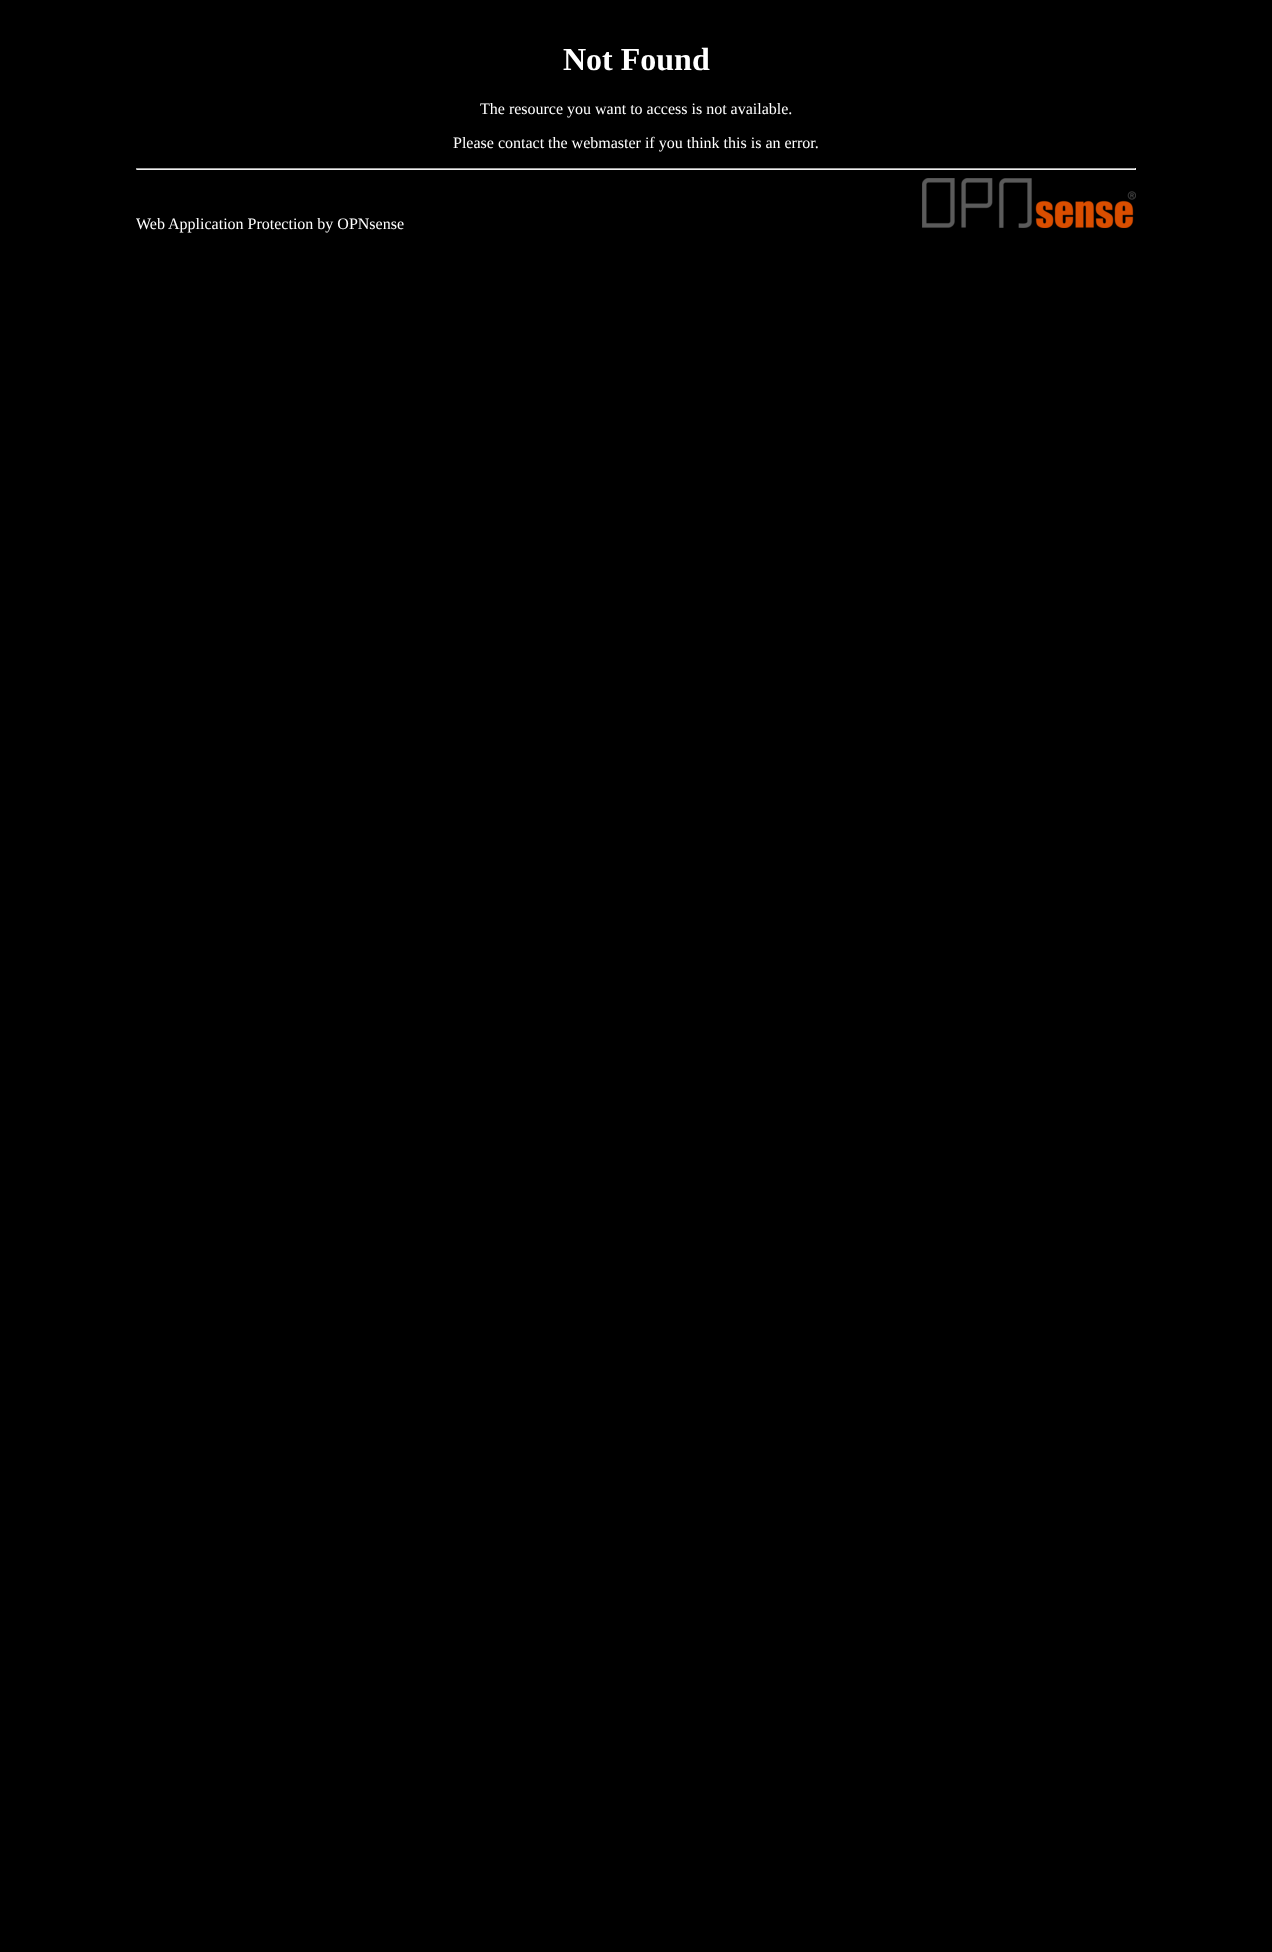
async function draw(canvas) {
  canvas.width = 1272
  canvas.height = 1952
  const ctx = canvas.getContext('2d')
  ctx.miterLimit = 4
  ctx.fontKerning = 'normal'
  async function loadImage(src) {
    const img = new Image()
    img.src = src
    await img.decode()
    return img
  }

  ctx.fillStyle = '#000'
  ctx.fillRect(0, 0, 1272, 1952)
  ctx.font = 'bold 32px Liberation Serif'
  ctx.fillStyle = '#fff'
  ctx.fillText('Not Found', 563, 70)
  ctx.font = '16px Liberation Serif'
  ctx.fillText('The resource you want to access is not available.', 480, 114)
  ctx.fillText('Please contact the webmaster if you think this is an error.', 453, 148)
  ctx.fillStyle = '#9f9f9f'
  ctx.fillRect(136, 168, 1000, 1)
  ctx.fillStyle = '#eee'
  ctx.fillRect(1135, 168, 1, 2)
  ctx.fillRect(136, 169, 1000, 1)
  ctx.fillStyle = '#9f9f9f'
  ctx.fillRect(136, 168, 1, 2)
  ctx.fillStyle = '#fff'
  ctx.fillText('Web Application Protection by OPNsense', 136, 229)
  ctx.drawImage(await loadImage('image0.png'), 922, 178, 214, 50)
}

draw(document.querySelector('canvas'))
